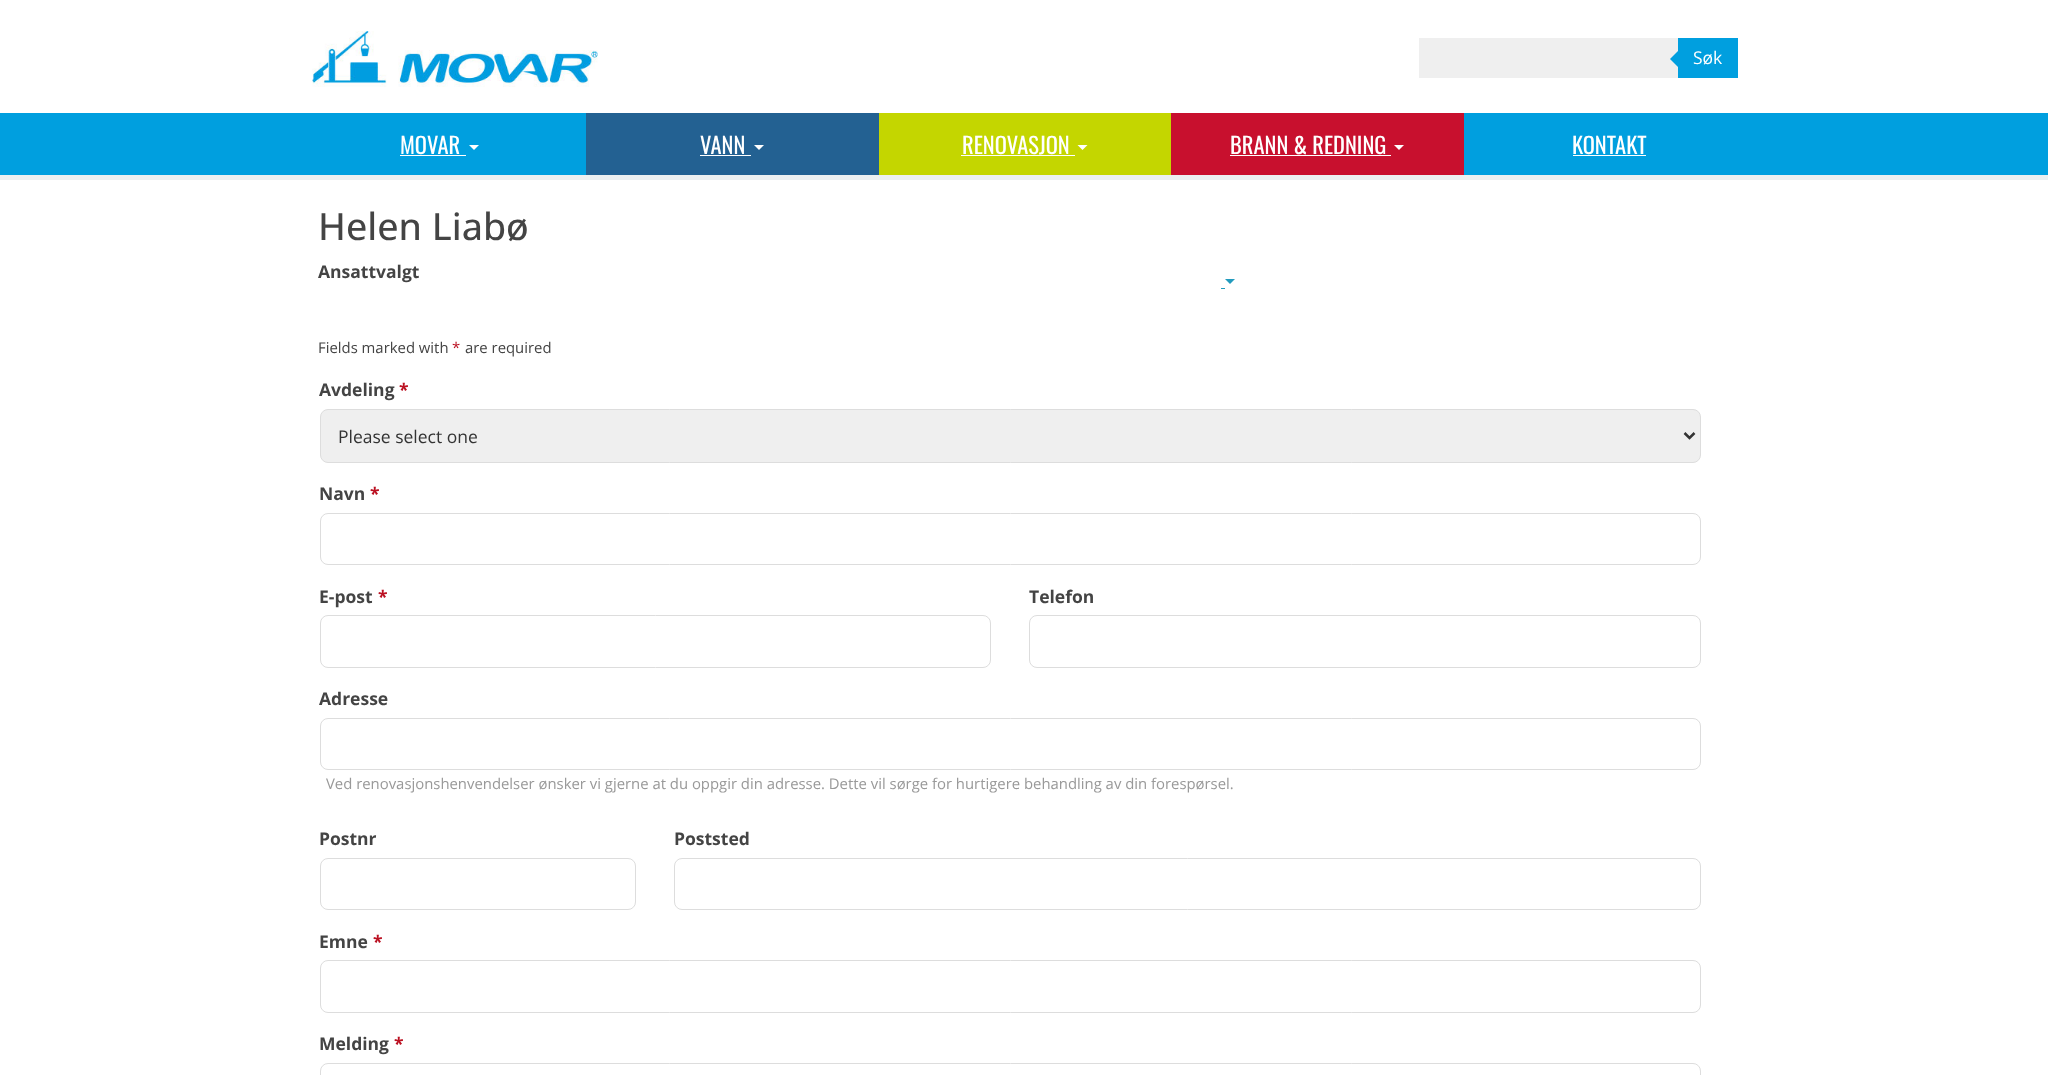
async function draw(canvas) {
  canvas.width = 2048
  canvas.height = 1075
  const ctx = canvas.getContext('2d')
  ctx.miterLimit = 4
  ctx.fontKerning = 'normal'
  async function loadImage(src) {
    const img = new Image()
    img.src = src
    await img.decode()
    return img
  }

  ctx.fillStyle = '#fff'
  ctx.fillRect(0, 0, 2048, 1075)
  ctx.drawImage(await loadImage('image0.png'), 312, 31, 286, 56)
  ctx.fillStyle = '#efefef'
  ctx.fillRect(1419, 38, 259, 40)
  ctx.fillStyle = '#009fdf'
  ctx.fillRect(1678, 38, 60, 40)
  ctx.beginPath()
  ctx.moveTo(1680, 49)
  ctx.lineTo(1680, 69)
  ctx.lineTo(1670, 59)
  ctx.closePath()
  ctx.fill()
  ctx.font = '17.5px Open Sans'
  ctx.fillStyle = '#fff'
  ctx.fillText('Søk', 1693, 64)
  ctx.fillStyle = '#009fdf'
  ctx.fillRect(0, 113, 2048, 62)
  ctx.fillStyle = '#ecf0f1'
  ctx.fillRect(0, 175, 2048, 5)
  ctx.font = '22.5px Oswald'
  ctx.fillStyle = '#fff'
  ctx.fillText('MOVAR', 400, 154)
  ctx.fillRect(400, 155, 66, 1)
  ctx.beginPath()
  ctx.moveTo(469, 145)
  ctx.lineTo(479, 145)
  ctx.lineTo(474, 150)
  ctx.closePath()
  ctx.fill()
  ctx.fillStyle = '#236192'
  ctx.fillRect(586, 113, 293, 62)
  ctx.fillStyle = '#fff'
  ctx.fillText('VANN', 700, 154)
  ctx.fillRect(700, 155, 51, 1)
  ctx.beginPath()
  ctx.moveTo(754, 145)
  ctx.lineTo(764, 145)
  ctx.lineTo(759, 150)
  ctx.closePath()
  ctx.fill()
  ctx.fillStyle = '#c4d600'
  ctx.fillRect(879, 113, 292, 62)
  ctx.fillStyle = '#fff'
  ctx.fillText('RENOVASJON', 962, 154)
  ctx.fillRect(961, 155, 114, 1)
  ctx.beginPath()
  ctx.moveTo(1077.5, 145)
  ctx.lineTo(1087.5, 145)
  ctx.lineTo(1082.5, 150)
  ctx.closePath()
  ctx.fill()
  ctx.fillStyle = '#c8102e'
  ctx.fillRect(1171, 113, 293, 62)
  ctx.fillStyle = '#fff'
  ctx.fillText('BRANN & REDNING', 1230, 154)
  ctx.fillRect(1230, 155, 161, 1)
  ctx.beginPath()
  ctx.moveTo(1394, 145)
  ctx.lineTo(1404, 145)
  ctx.lineTo(1399, 150)
  ctx.closePath()
  ctx.fill()
  ctx.fillText('KONTAKT', 1572, 154)
  ctx.fillRect(1573, 155, 73, 1)
  ctx.font = '500 37.5px Open Sans'
  ctx.fillStyle = '#444'
  ctx.fillText('Helen Liabø', 318, 240)
  ctx.font = 'bold 17.5px Open Sans'
  ctx.fillText('Ansattvalgt', 318, 278)
  ctx.fillStyle = '#229bbe'
  ctx.beginPath()
  ctx.moveTo(1225, 279)
  ctx.lineTo(1235, 279)
  ctx.lineTo(1230, 284)
  ctx.closePath()
  ctx.fill()
  ctx.fillRect(1221, 288, 4, 1)
  ctx.font = '14.88px Open Sans'
  ctx.fillStyle = '#444'
  ctx.fillText('Fields marked with', 318, 353)
  ctx.fillStyle = '#b12'
  ctx.fillText('*', 452, 353)
  ctx.fillStyle = '#444'
  ctx.fillText('are required', 465, 353)
  ctx.font = 'bold 17.5px Open Sans'
  ctx.fillText('Avdeling', 319, 396)
  ctx.fillStyle = '#b12'
  ctx.fillText('*', 399, 396)
  ctx.fillStyle = '#efefef'
  ctx.beginPath()
  ctx.roundRect(320.5, 409.5, 1380, 53, 7.5)
  ctx.fill()
  ctx.strokeStyle = '#ddd'
  ctx.stroke()
  ctx.beginPath()
  ctx.moveTo(1684.5, 433)
  ctx.lineTo(1689.5, 438)
  ctx.lineTo(1694.5, 433)
  ctx.strokeStyle = '#333'
  ctx.lineWidth = 2.5
  ctx.stroke()
  ctx.font = '17.5px Open Sans'
  ctx.fillStyle = '#333'
  ctx.fillText('Please select one', 338, 443)
  ctx.font = 'bold 17.5px Open Sans'
  ctx.fillStyle = '#444'
  ctx.fillText('Navn', 319, 500)
  ctx.fillStyle = '#b12'
  ctx.fillText('*', 370, 500)
  ctx.beginPath()
  ctx.roundRect(320.5, 513.5, 1380, 51, 7.5)
  ctx.strokeStyle = '#ddd'
  ctx.lineWidth = 1
  ctx.stroke()
  ctx.fillStyle = '#444'
  ctx.fillText('E-post', 319, 603)
  ctx.fillStyle = '#b12'
  ctx.fillText('*', 378, 603)
  ctx.beginPath()
  ctx.roundRect(320.5, 615.5, 670, 52, 7.5)
  ctx.stroke()
  ctx.fillStyle = '#444'
  ctx.fillText('Telefon', 1029, 603)
  ctx.beginPath()
  ctx.roundRect(1029.5, 615.5, 671, 52, 7.5)
  ctx.stroke()
  ctx.fillText('Adresse', 319, 705)
  ctx.beginPath()
  ctx.roundRect(320.5, 718.5, 1380, 51, 7.5)
  ctx.stroke()
  ctx.font = '14.88px Open Sans'
  ctx.fillStyle = '#999'
  ctx.fillText('Ved renovasjonshenvendelser ønsker vi gjerne at du oppgir din adresse. Dette vil sørge for hurtigere behandling av din forespørsel.', 326, 789)
  ctx.font = 'bold 17.5px Open Sans'
  ctx.fillStyle = '#444'
  ctx.fillText('Postnr', 319, 845)
  ctx.beginPath()
  ctx.roundRect(320.5, 858.5, 315, 51, 7.5)
  ctx.stroke()
  ctx.fillText('Poststed', 674, 845)
  ctx.beginPath()
  ctx.roundRect(674.5, 858.5, 1026, 51, 7.5)
  ctx.stroke()
  ctx.fillText('Emne', 319, 948)
  ctx.fillStyle = '#b12'
  ctx.fillText('*', 373, 948)
  ctx.beginPath()
  ctx.roundRect(320.5, 960.5, 1380, 52, 7.5)
  ctx.stroke()
  ctx.fillStyle = '#444'
  ctx.fillText('Melding', 319, 1050)
  ctx.fillStyle = '#b12'
  ctx.fillText('*', 394, 1050)
  ctx.beginPath()
  ctx.roundRect(320.5, 1063.5, 1380, 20, 7.5)
  ctx.stroke()
}

draw(document.querySelector('canvas'))
